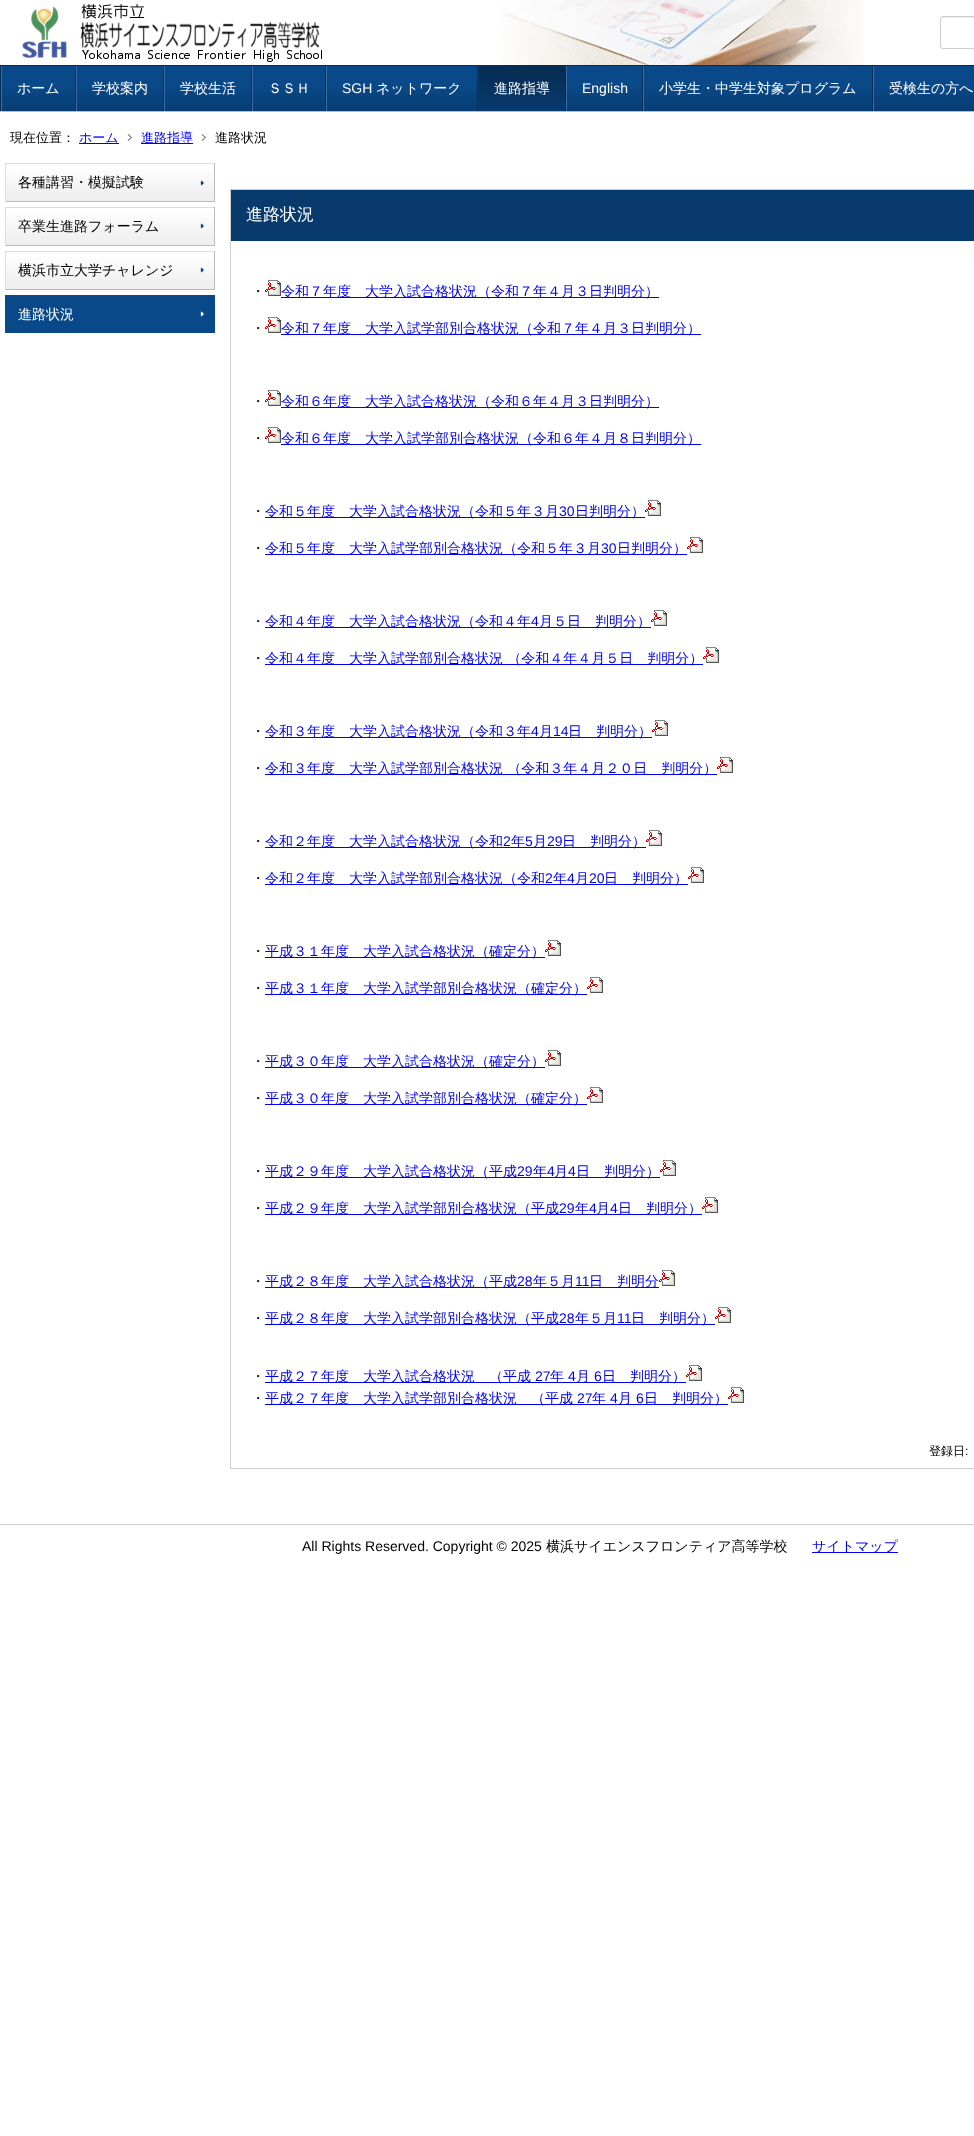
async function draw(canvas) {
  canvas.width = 974
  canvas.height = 2136
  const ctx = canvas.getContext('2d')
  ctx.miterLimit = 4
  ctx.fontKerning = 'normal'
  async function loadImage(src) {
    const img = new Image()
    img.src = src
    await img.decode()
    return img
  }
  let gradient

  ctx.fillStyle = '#fff'
  ctx.fillRect(0, 0, 974, 2136)
  ctx.drawImage(await loadImage('image0.png'), 500, 0, 364, 65)
  ctx.drawImage(await loadImage('image1.png'), 22, 4, 300, 58)
  ctx.fillStyle = '#ececec'
  ctx.beginPath()
  ctx.moveTo(943, 18)
  ctx.lineTo(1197, 18)
  ctx.bezierCurveTo(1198, 18, 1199, 19, 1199, 20)
  ctx.lineTo(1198, 17)
  ctx.lineTo(943, 17)
  ctx.bezierCurveTo(941, 17, 941, 19, 941, 20)
  ctx.bezierCurveTo(941, 19, 942, 18, 943, 18)
  ctx.closePath()
  ctx.fill()
  ctx.beginPath()
  ctx.roundRect(940.5, 16.5, 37, 32, 2.5)
  ctx.strokeStyle = '#ccc'
  ctx.stroke()
  ctx.fillStyle = '#0a4989'
  ctx.fillRect(2, 66, 972, 18)
  ctx.fillStyle = '#062c52'
  ctx.fillRect(0, 65, 974, 1)
  ctx.fillStyle = '#bbb'
  ctx.fillRect(0, 111, 974, 1)
  ctx.fillStyle = '#062c52'
  ctx.fillRect(0, 66, 1, 45)
  gradient = ctx.createLinearGradient(600, 84, 600, 111)
  gradient.addColorStop(0, '#0a4989')
  gradient.addColorStop(1, '#083d73')
  ctx.fillStyle = gradient
  ctx.fillRect(2, 84, 972, 27)
  ctx.fillStyle = '#062c52'
  ctx.fillRect(75, 66, 1, 45)
  ctx.fillStyle = '#3b6da1'
  ctx.fillRect(1, 66, 1, 45)
  ctx.font = '500 14px WenQuanYi Zen Hei'
  ctx.fillStyle = '#fff'
  ctx.fillText('ホーム', 17, 93)
  ctx.fillStyle = '#062c52'
  ctx.fillRect(163, 66, 1, 45)
  ctx.fillStyle = '#3b6da1'
  ctx.fillRect(76, 66, 1, 45)
  ctx.fillStyle = '#fff'
  ctx.fillText('学校案内', 92, 93)
  ctx.fillStyle = '#062c52'
  ctx.fillRect(251, 66, 1, 45)
  ctx.fillStyle = '#3b6da1'
  ctx.fillRect(164, 66, 1, 45)
  ctx.fillStyle = '#fff'
  ctx.fillText('学校生活', 180, 93)
  ctx.fillStyle = '#062c52'
  ctx.fillRect(325, 66, 1, 45)
  ctx.fillStyle = '#3b6da1'
  ctx.fillRect(252, 66, 1, 45)
  ctx.fillStyle = '#fff'
  ctx.fillText('ＳＳＨ', 268, 93)
  ctx.fillStyle = '#062c52'
  ctx.fillRect(477, 66, 1, 45)
  ctx.fillStyle = '#3b6da1'
  ctx.fillRect(326, 66, 1, 45)
  ctx.font = '14px Liberation Sans'
  ctx.fillStyle = '#fff'
  ctx.fillText('SGH', 342, 93)
  ctx.font = '500 14px WenQuanYi Zen Hei'
  ctx.fillText('ネットワーク', 376, 93)
  gradient = ctx.createLinearGradient(522, 66, 522, 111)
  gradient.addColorStop(0, '#062c52')
  gradient.addColorStop(1, '#083a6e')
  ctx.fillStyle = gradient
  ctx.fillRect(479, 66, 86, 45)
  ctx.fillStyle = '#062c52'
  ctx.fillRect(565, 66, 1, 45)
  ctx.fillStyle = '#083a6e'
  ctx.fillRect(478, 66, 1, 45)
  ctx.fillStyle = '#fff'
  ctx.fillText('進路指導', 494, 93)
  ctx.fillStyle = '#062c52'
  ctx.fillRect(642, 66, 1, 45)
  ctx.fillStyle = '#3b6da1'
  ctx.fillRect(566, 66, 1, 45)
  ctx.font = '14px Liberation Sans'
  ctx.fillStyle = '#fff'
  ctx.fillText('English', 582, 93)
  ctx.fillStyle = '#062c52'
  ctx.fillRect(872, 66, 1, 45)
  ctx.fillStyle = '#3b6da1'
  ctx.fillRect(643, 66, 1, 45)
  ctx.font = '500 14px WenQuanYi Zen Hei'
  ctx.fillStyle = '#fff'
  ctx.fillText('小学生・中学生対象プログラム', 659, 93)
  ctx.fillStyle = '#3b6da1'
  ctx.fillRect(873, 66, 1, 45)
  ctx.fillStyle = '#fff'
  ctx.fillText('受検生の方へ', 889, 93)
  ctx.font = '500 13px WenQuanYi Zen Hei'
  ctx.fillStyle = '#000'
  ctx.fillText('現在位置：', 10, 142)
  ctx.fillStyle = '#00e'
  ctx.fillRect(79, 143, 40, 1)
  ctx.fillText('ホーム', 79, 142)
  ctx.fillStyle = '#777'
  ctx.beginPath()
  ctx.moveTo(128.5, 134)
  ctx.lineTo(132, 137.5)
  ctx.lineTo(131, 138)
  ctx.lineTo(127.5, 134.5)
  ctx.closePath()
  ctx.fill()
  ctx.beginPath()
  ctx.moveTo(131, 137)
  ctx.lineTo(132, 137.5)
  ctx.lineTo(128.5, 141)
  ctx.lineTo(127.5, 140.5)
  ctx.closePath()
  ctx.fill()
  ctx.fillStyle = '#00e'
  ctx.fillRect(141, 143, 52, 1)
  ctx.fillText('進路指導', 141, 142)
  ctx.fillStyle = '#777'
  ctx.beginPath()
  ctx.moveTo(202.5, 134)
  ctx.lineTo(206, 137.5)
  ctx.lineTo(205, 138)
  ctx.lineTo(201.5, 134.5)
  ctx.closePath()
  ctx.fill()
  ctx.beginPath()
  ctx.moveTo(205, 137)
  ctx.lineTo(206, 137.5)
  ctx.lineTo(202.5, 141)
  ctx.lineTo(201.5, 140.5)
  ctx.closePath()
  ctx.fill()
  ctx.fillStyle = '#000'
  ctx.fillText('進路状況', 215, 142)
  gradient = ctx.createLinearGradient(110, 164, 110, 201)
  gradient.addColorStop(0, '#fff')
  gradient.addColorStop(1, '#eee')
  ctx.fillStyle = gradient
  ctx.fillRect(6, 169, 208, 32)
  ctx.fillStyle = '#ddd'
  ctx.fillRect(5, 163, 210, 1)
  ctx.fillStyle = '#bbb'
  ctx.fillRect(214, 163, 1, 39)
  ctx.fillRect(5, 201, 210, 1)
  ctx.fillStyle = '#ddd'
  ctx.fillRect(5, 163, 1, 39)
  ctx.font = '500 14px WenQuanYi Zen Hei'
  ctx.fillStyle = '#000'
  ctx.fillText('各種講習・模擬試験', 18, 187)
  ctx.fillStyle = '#0a4989'
  ctx.beginPath()
  ctx.moveTo(204, 183)
  ctx.lineTo(201.5, 185.5)
  ctx.bezierCurveTo(200.5, 185, 200.5, 181, 201.5, 180.5)
  ctx.closePath()
  ctx.fill()
  gradient = ctx.createLinearGradient(110, 208, 110, 245)
  gradient.addColorStop(0, '#fff')
  gradient.addColorStop(1, '#eee')
  ctx.fillStyle = gradient
  ctx.fillRect(6, 213, 208, 32)
  ctx.fillStyle = '#ddd'
  ctx.fillRect(5, 207, 210, 1)
  ctx.fillStyle = '#bbb'
  ctx.fillRect(214, 207, 1, 39)
  ctx.fillRect(5, 245, 210, 1)
  ctx.fillStyle = '#ddd'
  ctx.fillRect(5, 207, 1, 39)
  ctx.fillStyle = '#000'
  ctx.fillText('卒業生進路フォーラム', 18, 231)
  ctx.fillStyle = '#0a4989'
  ctx.beginPath()
  ctx.moveTo(204, 226)
  ctx.lineTo(201.5, 228.5)
  ctx.bezierCurveTo(200.5, 228, 200.5, 224, 201.5, 223.5)
  ctx.closePath()
  ctx.fill()
  gradient = ctx.createLinearGradient(110, 252, 110, 289)
  gradient.addColorStop(0, '#fff')
  gradient.addColorStop(1, '#eee')
  ctx.fillStyle = gradient
  ctx.fillRect(6, 257, 208, 32)
  ctx.fillStyle = '#ddd'
  ctx.fillRect(5, 251, 210, 1)
  ctx.fillStyle = '#bbb'
  ctx.fillRect(214, 251, 1, 39)
  ctx.fillRect(5, 289, 210, 1)
  ctx.fillStyle = '#ddd'
  ctx.fillRect(5, 251, 1, 39)
  ctx.fillStyle = '#000'
  ctx.fillText('横浜市立大学チャレンジ', 18, 275)
  ctx.fillStyle = '#0a4989'
  ctx.beginPath()
  ctx.moveTo(204, 270)
  ctx.lineTo(201.5, 272.5)
  ctx.bezierCurveTo(200.5, 272, 200.5, 268, 201.5, 267.5)
  ctx.closePath()
  ctx.fill()
  ctx.fillRect(5, 295, 210, 38)
  ctx.fillStyle = '#fff'
  ctx.fillText('進路状況', 18, 319)
  ctx.beginPath()
  ctx.moveTo(204, 314)
  ctx.lineTo(201.5, 316.5)
  ctx.bezierCurveTo(200.5, 316, 200.5, 312, 201.5, 311.5)
  ctx.closePath()
  ctx.fill()
  ctx.strokeRect(230.5, 189.5, 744, 1279)
  ctx.fillStyle = '#083a6e'
  ctx.fillRect(231, 190, 743, 51)
  ctx.font = '500 17px WenQuanYi Zen Hei'
  ctx.fillStyle = '#fff'
  ctx.fillText('進路状況', 246, 220)
  ctx.font = '500 14px WenQuanYi Zen Hei'
  ctx.fillStyle = '#000'
  ctx.fillText('・', 251, 296)
  ctx.drawImage(await loadImage('image2.png'), 265, 280, 16, 16)
  ctx.fillStyle = '#00e'
  ctx.fillRect(281, 297, 378, 1)
  ctx.fillText('令和７年度　大学入試合格状況（令和７年４月３日判明分）', 281, 296)
  ctx.fillStyle = '#000'
  ctx.fillText('・', 251, 333)
  ctx.drawImage(await loadImage('image2.png'), 265, 317, 16, 16)
  ctx.fillStyle = '#00e'
  ctx.fillRect(281, 334, 420, 1)
  ctx.fillText('令和７年度　大学入試学部別合格状況（令和７年４月３日判明分）', 281, 333)
  ctx.fillStyle = '#000'
  ctx.fillText('・', 251, 406)
  ctx.drawImage(await loadImage('image2.png'), 265, 390, 16, 16)
  ctx.fillStyle = '#00e'
  ctx.fillRect(281, 407, 378, 1)
  ctx.fillText('令和６年度　大学入試合格状況（令和６年４月３日判明分）', 281, 406)
  ctx.fillStyle = '#000'
  ctx.fillText('・', 251, 443)
  ctx.drawImage(await loadImage('image2.png'), 265, 427, 16, 16)
  ctx.fillStyle = '#00e'
  ctx.fillRect(281, 444, 420, 1)
  ctx.fillText('令和６年度　大学入試学部別合格状況（令和６年４月８日判明分）', 281, 443)
  ctx.fillStyle = '#000'
  ctx.fillText('・', 251, 516)
  ctx.fillStyle = '#00e'
  ctx.fillRect(265, 517, 380, 1)
  ctx.fillText('令和５年度　大学入試合格状況（令和５年３月', 265, 516)
  ctx.font = '14px Liberation Sans'
  ctx.fillText('30', 559, 516)
  ctx.font = '500 14px WenQuanYi Zen Hei'
  ctx.fillText('日判明分）', 575, 516)
  ctx.drawImage(await loadImage('image2.png'), 645, 500, 16, 16)
  ctx.fillStyle = '#000'
  ctx.fillText('・', 251, 553)
  ctx.fillStyle = '#00e'
  ctx.fillRect(265, 554, 422, 1)
  ctx.fillText('令和５年度　大学入試学部別合格状況（令和５年３月', 265, 553)
  ctx.font = '14px Liberation Sans'
  ctx.fillText('30', 601, 553)
  ctx.font = '500 14px WenQuanYi Zen Hei'
  ctx.fillText('日判明分）', 617, 553)
  ctx.drawImage(await loadImage('image2.png'), 687, 537, 16, 16)
  ctx.fillStyle = '#000'
  ctx.fillText('・', 251, 626)
  ctx.fillStyle = '#00e'
  ctx.fillRect(265, 627, 386, 1)
  ctx.fillText('令和４年度　大学入試合格状況（令和４年', 265, 626)
  ctx.font = '14px Liberation Sans'
  ctx.fillText('4', 531, 626)
  ctx.font = '500 14px WenQuanYi Zen Hei'
  ctx.fillText('月５日　判明分）', 539, 626)
  ctx.drawImage(await loadImage('image2.png'), 651, 610, 16, 16)
  ctx.fillStyle = '#000'
  ctx.fillText('・', 251, 663)
  ctx.fillStyle = '#00e'
  ctx.fillRect(265, 664, 438, 1)
  ctx.fillText('令和４年度　大学入試学部別合格状況 （令和４年４月５日　判明分）', 265, 663)
  ctx.drawImage(await loadImage('image2.png'), 703, 647, 16, 16)
  ctx.fillStyle = '#000'
  ctx.fillText('・', 251, 736)
  ctx.fillStyle = '#00e'
  ctx.fillRect(265, 737, 387, 1)
  ctx.fillText('令和３年度　大学入試合格状況（令和３年', 265, 736)
  ctx.font = '14px Liberation Sans'
  ctx.fillText('4', 531, 736)
  ctx.font = '500 14px WenQuanYi Zen Hei'
  ctx.fillText('月', 539, 736)
  ctx.font = '14px Liberation Sans'
  ctx.fillText('14', 553, 736)
  ctx.font = '500 14px WenQuanYi Zen Hei'
  ctx.fillText('日　判明分）', 568, 736)
  ctx.drawImage(await loadImage('image2.png'), 652, 720, 16, 16)
  ctx.fillStyle = '#000'
  ctx.fillText('・', 251, 773)
  ctx.fillStyle = '#00e'
  ctx.fillRect(265, 774, 452, 1)
  ctx.fillText('令和３年度　大学入試学部別合格状況 （令和３年４月２０日　判明分）', 265, 773)
  ctx.drawImage(await loadImage('image2.png'), 717, 757, 16, 16)
  ctx.fillStyle = '#000'
  ctx.fillText('・', 251, 846)
  ctx.fillStyle = '#00e'
  ctx.fillRect(265, 847, 381, 1)
  ctx.fillText('令和２年度　大学入試合格状況（令和', 265, 846)
  ctx.font = '14px Liberation Sans'
  ctx.fillText('2', 503, 846)
  ctx.font = '500 14px WenQuanYi Zen Hei'
  ctx.fillText('年', 511, 846)
  ctx.font = '14px Liberation Sans'
  ctx.fillText('5', 525, 846)
  ctx.font = '500 14px WenQuanYi Zen Hei'
  ctx.fillText('月', 533, 846)
  ctx.font = '14px Liberation Sans'
  ctx.fillText('29', 547, 846)
  ctx.font = '500 14px WenQuanYi Zen Hei'
  ctx.fillText('日　判明分）', 562, 846)
  ctx.drawImage(await loadImage('image2.png'), 646, 830, 16, 16)
  ctx.fillStyle = '#000'
  ctx.fillText('・', 251, 883)
  ctx.fillStyle = '#00e'
  ctx.fillRect(265, 884, 423, 1)
  ctx.fillText('令和２年度　大学入試学部別合格状況（令和', 265, 883)
  ctx.font = '14px Liberation Sans'
  ctx.fillText('2', 545, 883)
  ctx.font = '500 14px WenQuanYi Zen Hei'
  ctx.fillText('年', 553, 883)
  ctx.font = '14px Liberation Sans'
  ctx.fillText('4', 567, 883)
  ctx.font = '500 14px WenQuanYi Zen Hei'
  ctx.fillText('月', 575, 883)
  ctx.font = '14px Liberation Sans'
  ctx.fillText('20', 589, 883)
  ctx.font = '500 14px WenQuanYi Zen Hei'
  ctx.fillText('日　判明分）', 604, 883)
  ctx.drawImage(await loadImage('image2.png'), 688, 867, 16, 16)
  ctx.fillStyle = '#000'
  ctx.fillText('・', 251, 956)
  ctx.fillStyle = '#00e'
  ctx.fillRect(265, 957, 280, 1)
  ctx.fillText('平成３１年度　大学入試合格状況（確定分）', 265, 956)
  ctx.drawImage(await loadImage('image2.png'), 545, 940, 16, 16)
  ctx.fillStyle = '#000'
  ctx.fillText('・', 251, 993)
  ctx.fillStyle = '#00e'
  ctx.fillRect(265, 994, 322, 1)
  ctx.fillText('平成３１年度　大学入試学部別合格状況（確定分）', 265, 993)
  ctx.drawImage(await loadImage('image2.png'), 587, 977, 16, 16)
  ctx.fillStyle = '#000'
  ctx.fillText('・', 251, 1066)
  ctx.fillStyle = '#00e'
  ctx.fillRect(265, 1067, 280, 1)
  ctx.fillText('平成３０年度　大学入試合格状況（確定分）', 265, 1066)
  ctx.drawImage(await loadImage('image2.png'), 545, 1050, 16, 16)
  ctx.fillStyle = '#000'
  ctx.fillText('・', 251, 1103)
  ctx.fillStyle = '#00e'
  ctx.fillRect(265, 1104, 322, 1)
  ctx.fillText('平成３０年度　大学入試学部別合格状況（確定分）', 265, 1103)
  ctx.drawImage(await loadImage('image2.png'), 587, 1087, 16, 16)
  ctx.fillStyle = '#000'
  ctx.fillText('・', 251, 1176)
  ctx.fillStyle = '#00e'
  ctx.fillRect(265, 1177, 395, 1)
  ctx.fillText('平成２９年度　大学入試合格状況（平成', 265, 1176)
  ctx.font = '14px Liberation Sans'
  ctx.fillText('29', 517, 1176)
  ctx.font = '500 14px WenQuanYi Zen Hei'
  ctx.fillText('年', 533, 1176)
  ctx.font = '14px Liberation Sans'
  ctx.fillText('4', 547, 1176)
  ctx.font = '500 14px WenQuanYi Zen Hei'
  ctx.fillText('月', 554, 1176)
  ctx.font = '14px Liberation Sans'
  ctx.fillText('4', 568, 1176)
  ctx.font = '500 14px WenQuanYi Zen Hei'
  ctx.fillText('日　判明分）', 576, 1176)
  ctx.drawImage(await loadImage('image2.png'), 660, 1160, 16, 16)
  ctx.fillStyle = '#000'
  ctx.fillText('・', 251, 1213)
  ctx.fillStyle = '#00e'
  ctx.fillRect(265, 1214, 437, 1)
  ctx.fillText('平成２９年度　大学入試学部別合格状況（平成', 265, 1213)
  ctx.font = '14px Liberation Sans'
  ctx.fillText('29', 559, 1213)
  ctx.font = '500 14px WenQuanYi Zen Hei'
  ctx.fillText('年', 575, 1213)
  ctx.font = '14px Liberation Sans'
  ctx.fillText('4', 589, 1213)
  ctx.font = '500 14px WenQuanYi Zen Hei'
  ctx.fillText('月', 596, 1213)
  ctx.font = '14px Liberation Sans'
  ctx.fillText('4', 610, 1213)
  ctx.font = '500 14px WenQuanYi Zen Hei'
  ctx.fillText('日　判明分）', 618, 1213)
  ctx.drawImage(await loadImage('image2.png'), 702, 1197, 16, 16)
  ctx.fillStyle = '#000'
  ctx.fillText('・', 251, 1286)
  ctx.fillStyle = '#00e'
  ctx.fillRect(265, 1287, 394, 1)
  ctx.fillText('平成２８年度　大学入試合格状況（平成', 265, 1286)
  ctx.font = '14px Liberation Sans'
  ctx.fillText('28', 517, 1286)
  ctx.font = '500 14px WenQuanYi Zen Hei'
  ctx.fillText('年５月', 533, 1286)
  ctx.font = '14px Liberation Sans'
  ctx.fillText('11', 575, 1286)
  ctx.font = '500 14px WenQuanYi Zen Hei'
  ctx.fillText('日　判明分', 589, 1286)
  ctx.drawImage(await loadImage('image2.png'), 659, 1270, 16, 16)
  ctx.fillStyle = '#000'
  ctx.fillText('・', 251, 1323)
  ctx.fillStyle = '#00e'
  ctx.fillRect(265, 1324, 450, 1)
  ctx.fillText('平成２８年度　大学入試学部別合格状況（平成', 265, 1323)
  ctx.font = '14px Liberation Sans'
  ctx.fillText('28', 559, 1323)
  ctx.font = '500 14px WenQuanYi Zen Hei'
  ctx.fillText('年５月', 575, 1323)
  ctx.font = '14px Liberation Sans'
  ctx.fillText('11', 617, 1323)
  ctx.font = '500 14px WenQuanYi Zen Hei'
  ctx.fillText('日　判明分）', 631, 1323)
  ctx.drawImage(await loadImage('image2.png'), 715, 1307, 16, 16)
  ctx.fillStyle = '#000'
  ctx.fillText('・', 251, 1381)
  ctx.fillStyle = '#00e'
  ctx.fillRect(265, 1382, 421, 1)
  ctx.fillText('平成２７年度　大学入試合格状況　（平成', 265, 1381)
  ctx.font = '14px Liberation Sans'
  ctx.fillText('27', 535, 1381)
  ctx.font = '500 14px WenQuanYi Zen Hei'
  ctx.fillText('年', 550, 1381)
  ctx.font = '14px Liberation Sans'
  ctx.fillText('4', 568, 1381)
  ctx.font = '500 14px WenQuanYi Zen Hei'
  ctx.fillText('月', 576, 1381)
  ctx.font = '14px Liberation Sans'
  ctx.fillText('6', 594, 1381)
  ctx.font = '500 14px WenQuanYi Zen Hei'
  ctx.fillText('日　判明分）', 602, 1381)
  ctx.drawImage(await loadImage('image2.png'), 686, 1365, 16, 16)
  ctx.fillStyle = '#000'
  ctx.fillText('・', 251, 1403)
  ctx.fillStyle = '#00e'
  ctx.fillRect(265, 1404, 463, 1)
  ctx.fillText('平成２７年度　大学入試学部別合格状況　（平成', 265, 1403)
  ctx.font = '14px Liberation Sans'
  ctx.fillText('27', 577, 1403)
  ctx.font = '500 14px WenQuanYi Zen Hei'
  ctx.fillText('年', 592, 1403)
  ctx.font = '14px Liberation Sans'
  ctx.fillText('4', 610, 1403)
  ctx.font = '500 14px WenQuanYi Zen Hei'
  ctx.fillText('月', 618, 1403)
  ctx.font = '14px Liberation Sans'
  ctx.fillText('6', 636, 1403)
  ctx.font = '500 14px WenQuanYi Zen Hei'
  ctx.fillText('日　判明分）', 644, 1403)
  ctx.drawImage(await loadImage('image2.png'), 728, 1387, 16, 16)
  ctx.font = '500 12px WenQuanYi Zen Hei'
  ctx.fillStyle = '#000'
  ctx.fillText('登録日', 929, 1455)
  ctx.font = '12px Liberation Sans'
  ctx.fillText(':', 965, 1455)
  ctx.fillStyle = '#ccc'
  ctx.fillRect(0, 1524, 974, 1)
  ctx.font = '14px Liberation Sans'
  ctx.fillStyle = '#000'
  ctx.fillText('All Rights Reserved. Copyright © 2025', 302, 1551)
  ctx.font = '500 14px WenQuanYi Zen Hei'
  ctx.fillText('横浜サイエンスフロンティア高等学校', 546, 1551)
  ctx.fillStyle = '#00e'
  ctx.fillRect(812, 1552, 86, 1)
  ctx.fillText('サイトマップ', 812, 1551)
}

draw(document.querySelector('canvas'))
